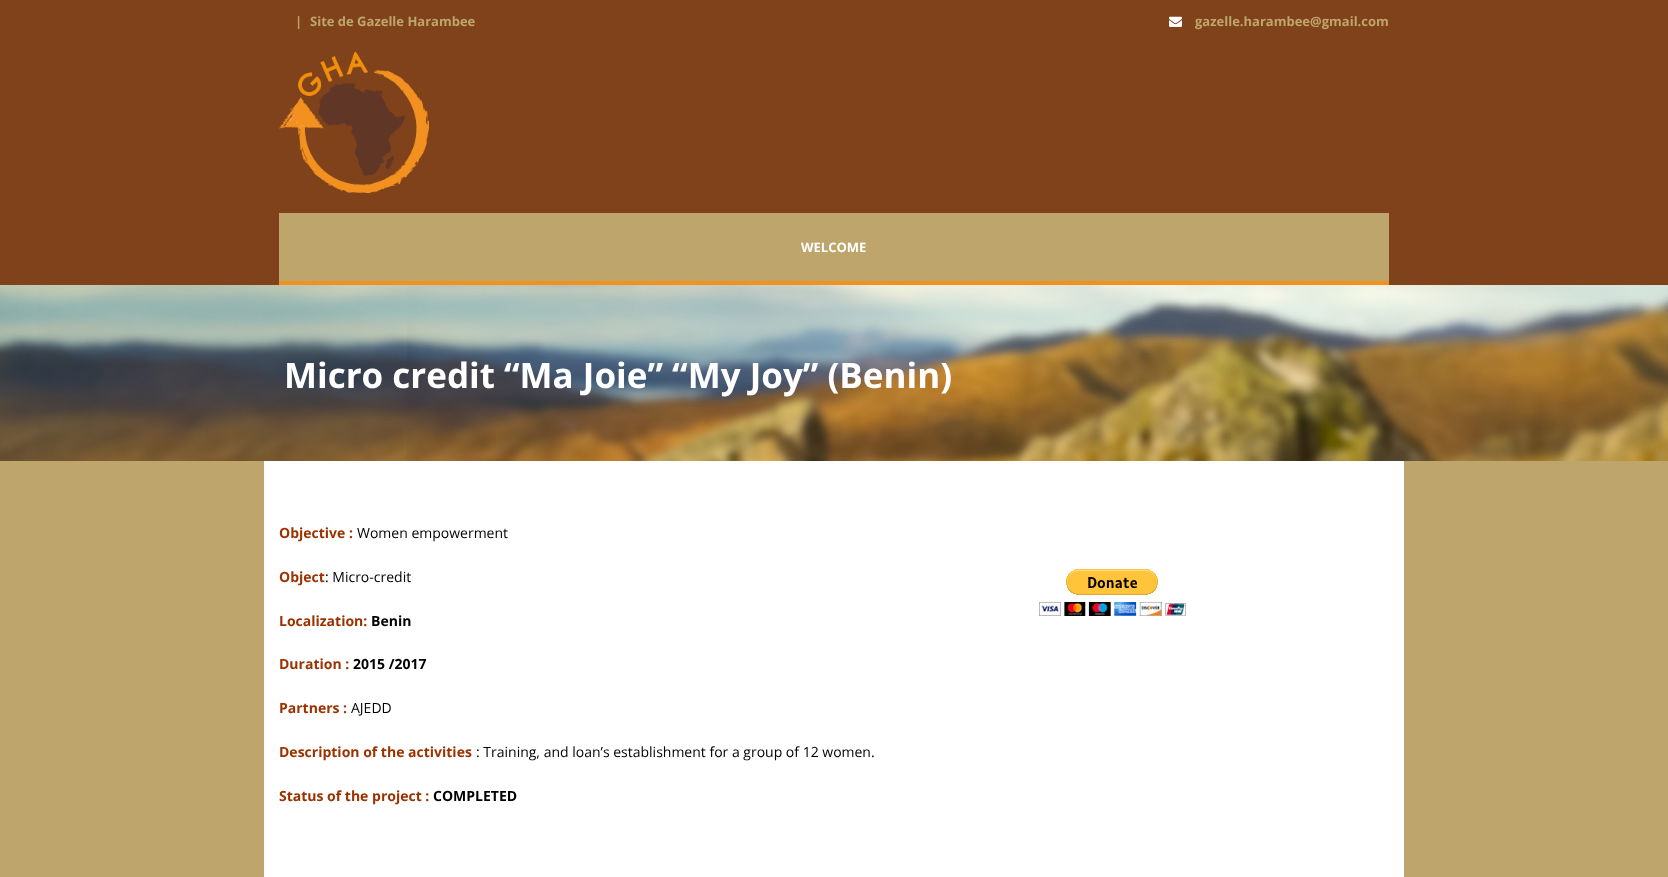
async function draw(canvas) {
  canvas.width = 1668
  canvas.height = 877
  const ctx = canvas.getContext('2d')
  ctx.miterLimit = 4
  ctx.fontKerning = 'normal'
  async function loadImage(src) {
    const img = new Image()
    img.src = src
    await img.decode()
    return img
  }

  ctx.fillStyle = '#bea56c'
  ctx.fillRect(0, 0, 1668, 877)
  ctx.fillStyle = '#80421a'
  ctx.fillRect(0, 0, 1668, 285)
  ctx.font = 'bold 13px Open Sans'
  ctx.fillStyle = '#bea56c'
  ctx.fillText('|', 295, 26)
  ctx.fillText('Site de Gazelle Harambee', 310, 26)
  ctx.drawImage(await loadImage('image0.png'), 1169, 16, 13, 11)
  ctx.fillText('gazelle.harambee@gmail.com', 1195, 26)
  ctx.drawImage(await loadImage('image1.png'), 279, 52, 150, 141)
  ctx.fillRect(279, 213, 1110, 68)
  ctx.fillStyle = '#f29120'
  ctx.fillRect(279, 281, 1110, 4)
  ctx.fillStyle = '#fff'
  ctx.fillText('WELCOME', 801, 252)
  ctx.drawImage(await loadImage('image2.png'), 0, 285, 1668, 176)
  ctx.font = 'bold 35px Open Sans'
  ctx.fillText('Micro credit “Ma Joie” “My Joy” (Benin)', 284, 388)
  ctx.fillRect(264, 461, 1140, 416)
  ctx.font = 'bold 14px Open Sans'
  ctx.fillStyle = '#930'
  ctx.fillText('Objective :', 279, 538)
  ctx.font = '14px Open Sans'
  ctx.fillStyle = '#000'
  ctx.fillText('Women empowerment', 357, 538)
  ctx.font = 'bold 14px Open Sans'
  ctx.fillStyle = '#930'
  ctx.fillText('Object', 279, 582)
  ctx.font = '14px Open Sans'
  ctx.fillStyle = '#000'
  ctx.fillText(': Micro-credit', 325, 582)
  ctx.font = 'bold 14px Open Sans'
  ctx.fillStyle = '#930'
  ctx.fillText('Localization:', 279, 626)
  ctx.fillStyle = '#000'
  ctx.fillText('Benin', 371, 626)
  ctx.fillStyle = '#930'
  ctx.fillText('Duration :', 279, 669)
  ctx.fillStyle = '#000'
  ctx.fillText('2015 /2017', 353, 669)
  ctx.fillStyle = '#930'
  ctx.fillText('Partners :', 279, 713)
  ctx.font = '14px Open Sans'
  ctx.fillStyle = '#000'
  ctx.fillText('AJEDD', 351, 713)
  ctx.font = 'bold 14px Open Sans'
  ctx.fillStyle = '#930'
  ctx.fillText('Description of the activities', 279, 757)
  ctx.font = '14px Open Sans'
  ctx.fillStyle = '#000'
  ctx.fillText(': Training, and loan’s establishment for a group of 12 women.', 476, 757)
  ctx.font = 'bold 14px Open Sans'
  ctx.fillStyle = '#930'
  ctx.fillText('Status of the project :', 279, 801)
  ctx.fillStyle = '#000'
  ctx.fillText('COMPLETED', 433, 801)
  ctx.drawImage(await loadImage('image3.png'), 1039, 569, 147, 47)
}

draw(document.querySelector('canvas'))
